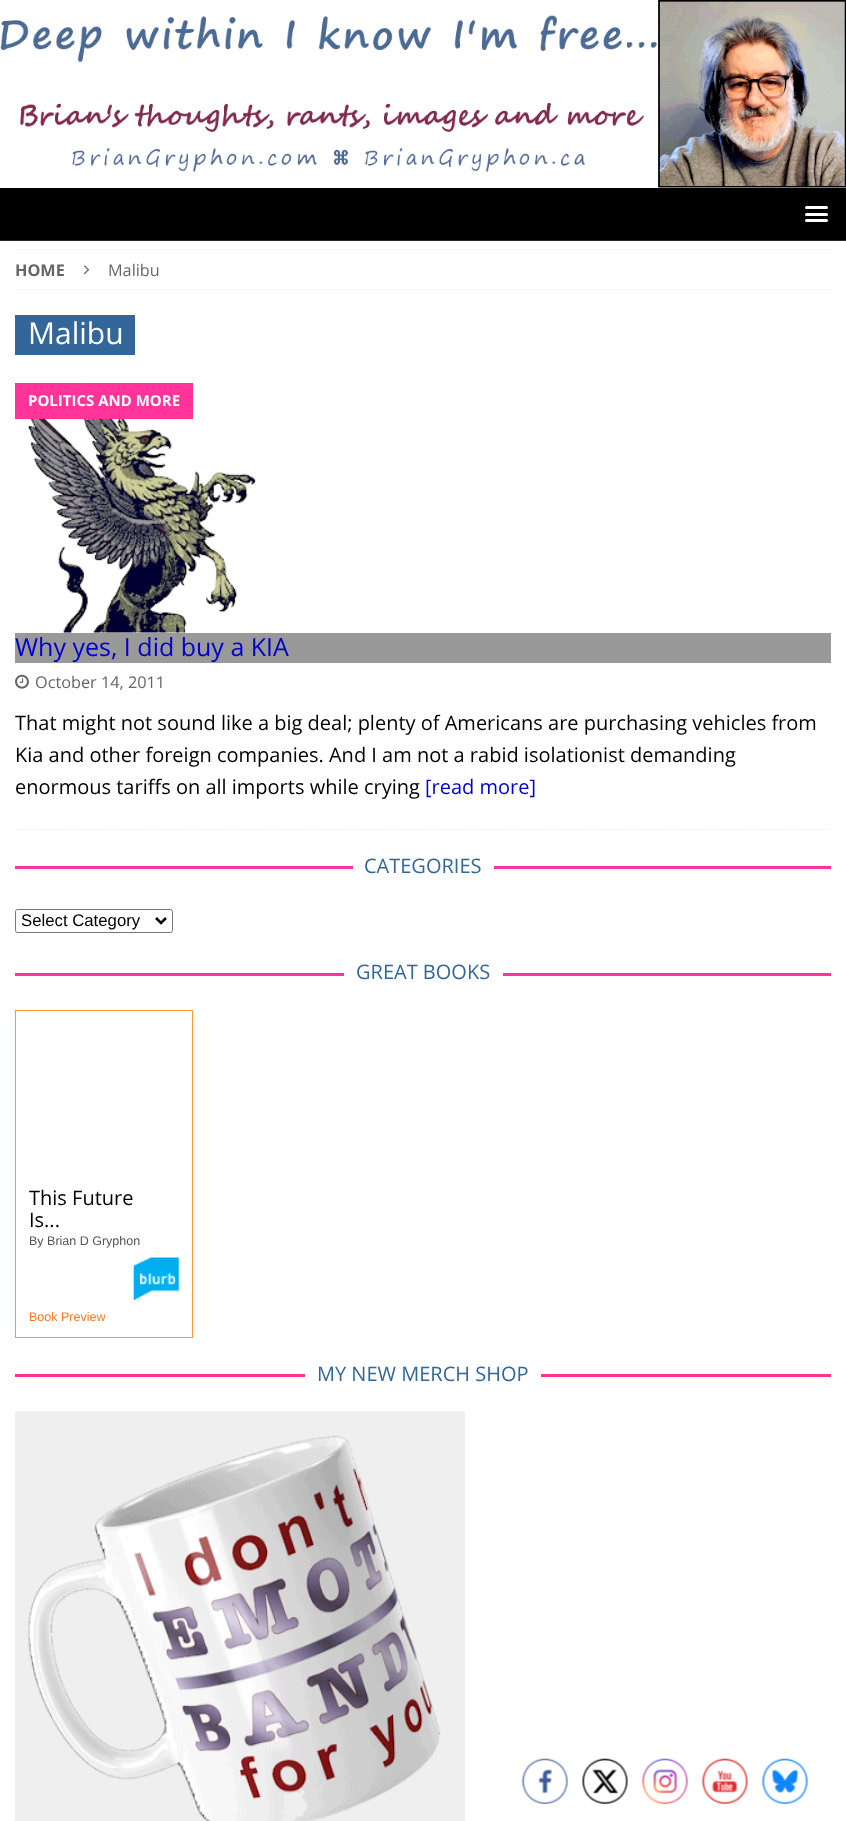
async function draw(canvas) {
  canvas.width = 846
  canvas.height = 1821
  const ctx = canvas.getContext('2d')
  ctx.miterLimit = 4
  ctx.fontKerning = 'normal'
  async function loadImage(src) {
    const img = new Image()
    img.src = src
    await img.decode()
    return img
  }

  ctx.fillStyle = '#fff'
  ctx.fillRect(0, 0, 846, 1821)
  ctx.drawImage(await loadImage('image0.png'), 0, 0, 846, 188)
  ctx.fillStyle = '#000'
  ctx.fillRect(0, 188, 846, 52)
  ctx.fillStyle = '#2a2a2a'
  ctx.fillRect(0, 240, 846, 1)
  ctx.fillStyle = '#fff'
  ctx.beginPath()
  ctx.roundRect(805, 206, 23, 3, 1.5)
  ctx.fill()
  ctx.beginPath()
  ctx.roundRect(805, 213, 23, 3, 1.5)
  ctx.fill()
  ctx.beginPath()
  ctx.roundRect(805, 219, 23, 3, 1.5)
  ctx.fill()
  ctx.save()
  ctx.beginPath()
  ctx.rect(15, 249, 816, 581)
  ctx.clip()
  ctx.beginPath()
  ctx.moveTo(15, 249.5)
  ctx.lineTo(831, 249.5)
  ctx.strokeStyle = '#ebebeb'
  ctx.lineWidth = 1.2
  ctx.setLineDash([1.25, 1.25])
  ctx.stroke()
  ctx.restore()
  ctx.beginPath()
  ctx.moveTo(15, 289.5)
  ctx.lineTo(831, 289.5)
  ctx.strokeStyle = '#ebebeb'
  ctx.lineWidth = 1.2
  ctx.setLineDash([1.25, 1.25])
  ctx.stroke()
  ctx.font = 'bold 16.25px Open Sans'
  ctx.fillStyle = '#666'
  ctx.fillText('HOME', 15, 276)
  ctx.drawImage(await loadImage('image1.png'), 83, 265, 7, 10)
  ctx.font = '16.25px Open Sans'
  ctx.fillText('Malibu', 108, 276)
  ctx.fillStyle = '#369'
  ctx.fillRect(15, 315, 120, 40)
  ctx.font = '30px Open Sans'
  ctx.fillStyle = '#fff'
  ctx.fillText('Malibu', 28, 344)
  ctx.save()
  ctx.beginPath()
  ctx.rect(15, 249, 816, 581)
  ctx.clip()
  ctx.beginPath()
  ctx.moveTo(15, 829.5)
  ctx.lineTo(831, 829.5)
  ctx.stroke()
  ctx.restore()
  ctx.drawImage(await loadImage('image2.png'), 28, 382, 228, 251)
  ctx.fillStyle = '#f39'
  ctx.fillRect(15, 383, 178, 36)
  ctx.font = 'bold 15px Open Sans'
  ctx.fillStyle = '#fff'
  ctx.fillText('POLITICS AND MORE', 28, 406)
  ctx.fillStyle = '#999'
  ctx.fillRect(15, 633, 816, 30)
  ctx.font = '25px Open Sans'
  ctx.fillStyle = '#00c'
  ctx.fillText('Why yes, I did buy a KIA', 15, 656)
  ctx.drawImage(await loadImage('image3.png'), 15, 674, 14, 15)
  ctx.font = '16.25px Open Sans'
  ctx.fillStyle = '#666'
  ctx.fillText('October 14, 2011', 35, 688)
  ctx.font = '20px Open Sans'
  ctx.fillStyle = '#000'
  ctx.fillText('That might not sound like a big deal; plenty of Americans are purchasing vehicles from', 15, 730)
  ctx.fillText('Kia and other foreign companies. And I am not a rabid isolationist demanding', 15, 762)
  ctx.fillText('enormous tariffs on all imports while crying', 15, 794)
  ctx.fillStyle = '#00c'
  ctx.fillText('[read more]', 425, 794)
  ctx.fillStyle = '#f39'
  ctx.fillRect(15, 866, 816, 3)
  ctx.fillStyle = '#fff'
  ctx.fillRect(353, 866, 141, 3)
  ctx.fillStyle = '#369'
  ctx.fillText('CATEGORIES', 364, 873)
  ctx.beginPath()
  ctx.roundRect(15.5, 909.5, 157, 23, 2)
  ctx.strokeStyle = '#767676'
  ctx.lineWidth = 1
  ctx.setLineDash([])
  ctx.stroke()
  ctx.beginPath()
  ctx.moveTo(156, 918)
  ctx.lineTo(161, 923)
  ctx.lineTo(166, 918)
  ctx.strokeStyle = '#000'
  ctx.lineWidth = 2.5
  ctx.stroke()
  ctx.font = '16.75px Liberation Sans'
  ctx.fillStyle = '#000'
  ctx.fillText('Select Category', 21, 926)
  ctx.fillStyle = '#f39'
  ctx.fillRect(15, 973, 816, 3)
  ctx.fillStyle = '#fff'
  ctx.fillRect(344, 973, 159, 3)
  ctx.font = '20px Open Sans'
  ctx.fillStyle = '#369'
  ctx.fillText('GREAT BOOKS', 356, 979)
  ctx.strokeStyle = '#f93'
  ctx.lineWidth = 1
  ctx.strokeRect(15.5, 1010.5, 177, 327)
  ctx.fillStyle = '#000'
  ctx.fillText('This Future', 29, 1205)
  ctx.fillText('Is...', 29, 1227)
  ctx.font = '12.5px Liberation Sans'
  ctx.fillStyle = '#545454'
  ctx.fillText('By Brian D Gryphon', 29, 1245)
  ctx.drawImage(await loadImage('image4.png'), 133, 1257, 46, 43)
  ctx.fillStyle = '#fd7820'
  ctx.fillText('Book Preview', 29, 1321)
  ctx.fillStyle = '#f39'
  ctx.fillRect(15, 1374, 816, 3)
  ctx.fillStyle = '#fff'
  ctx.fillRect(305, 1374, 236, 3)
  ctx.font = '20px Open Sans'
  ctx.fillStyle = '#369'
  ctx.fillText('MY NEW MERCH SHOP', 317, 1381)
  ctx.drawImage(await loadImage('image5.png'), 15, 1411, 450, 410)
  ctx.drawImage(await loadImage('image6.png'), 522, 1758, 46, 46)
  ctx.drawImage(await loadImage('image7.png'), 582, 1758, 46, 46)
  ctx.drawImage(await loadImage('image8.png'), 642, 1758, 46, 46)
  ctx.drawImage(await loadImage('image9.png'), 702, 1758, 46, 46)
  ctx.drawImage(await loadImage('image10.png'), 762, 1758, 46, 46)
}

draw(document.querySelector('canvas'))
